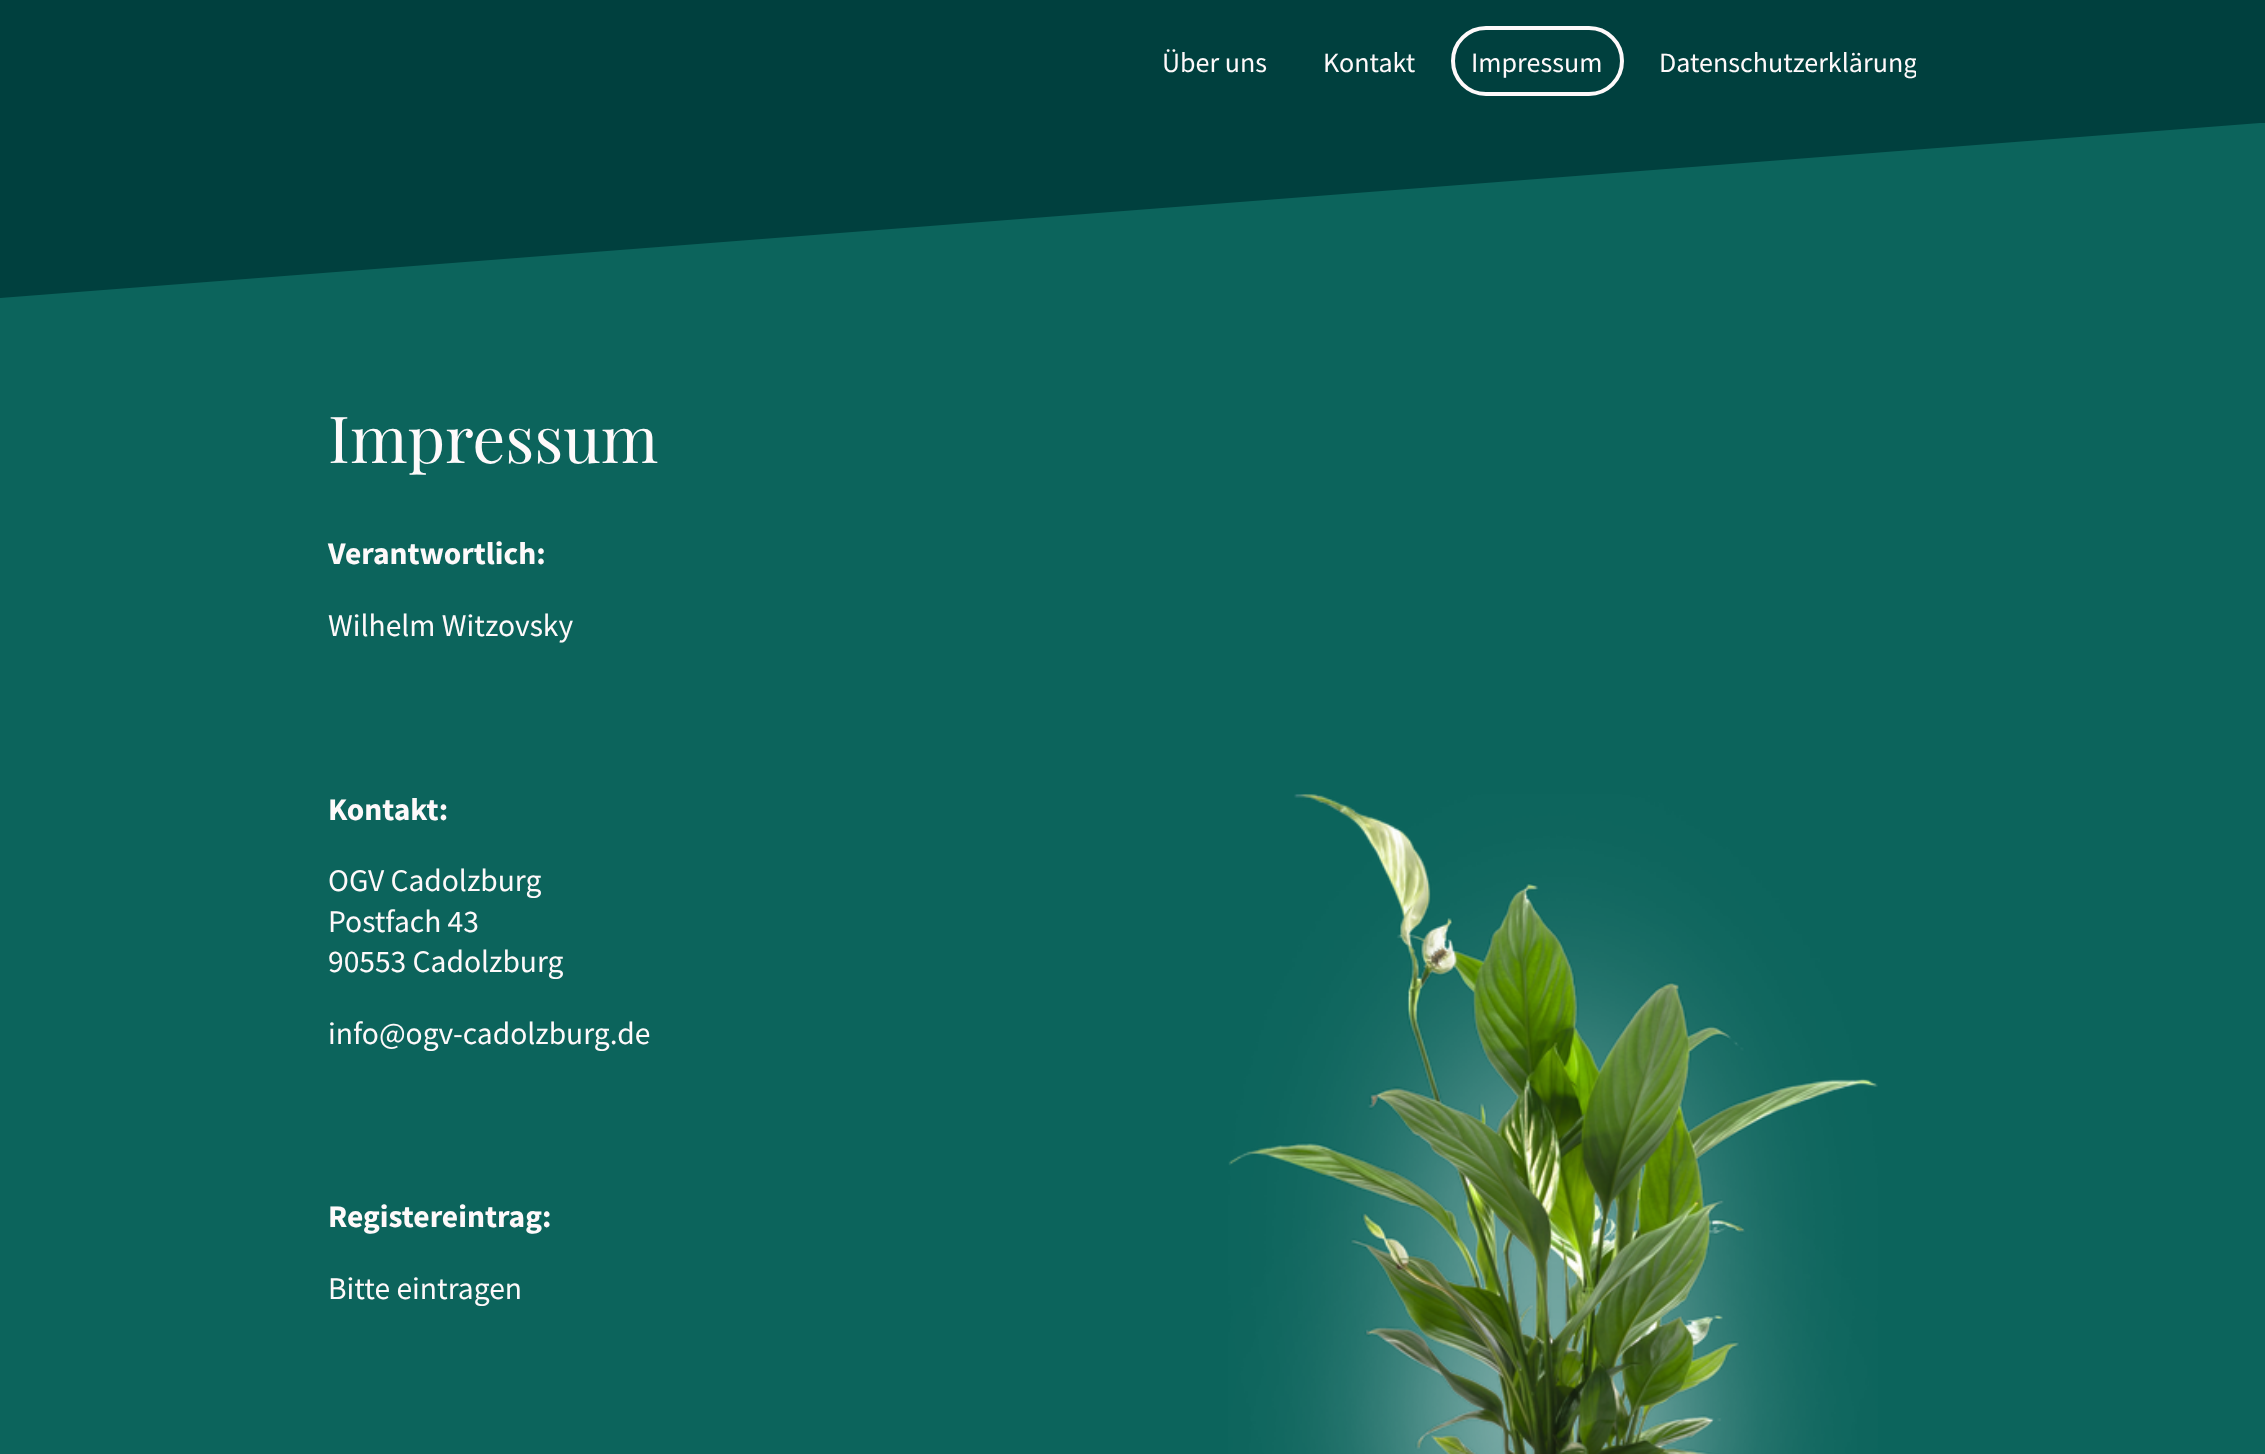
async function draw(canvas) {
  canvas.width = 2265
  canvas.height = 1454
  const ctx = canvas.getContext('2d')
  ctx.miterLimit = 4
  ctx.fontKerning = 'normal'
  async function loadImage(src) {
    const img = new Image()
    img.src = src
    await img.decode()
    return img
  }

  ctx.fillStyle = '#00403e'
  ctx.fillRect(0, 0, 2265, 1454)
  ctx.font = '28px Source Sans Pro'
  ctx.fillStyle = '#fef9fa'
  ctx.fillText('Über uns', 1162, 72)
  ctx.fillText('Kontakt', 1323, 72)
  ctx.beginPath()
  ctx.roundRect(1453, 28, 169, 66, 33)
  ctx.strokeStyle = '#fef9fa'
  ctx.lineWidth = 4
  ctx.stroke()
  ctx.fillText('Impressum', 1471, 72)
  ctx.save()
  ctx.beginPath()
  ctx.rect(1659, 44, 257, 35)
  ctx.clip()
  ctx.fillText('Datenschutzerklärung', 1659, 72)
  ctx.restore()
  ctx.fillStyle = '#0c645c'
  ctx.beginPath()
  ctx.moveTo(0, 298)
  ctx.lineTo(0, 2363)
  ctx.lineTo(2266, 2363)
  ctx.lineTo(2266, 123)
  ctx.lineTo(2260, 123)
  ctx.closePath()
  ctx.fill()
  ctx.font = '64.75px Playfair Display'
  ctx.fillStyle = '#fef9fa'
  ctx.fillText('Impressum', 328, 463)
  ctx.font = 'bold 31.5px Source Sans Pro'
  ctx.fillText('Verantwortlich:', 328, 564)
  ctx.font = '31.5px Source Sans Pro'
  ctx.fillText('Wilhelm Witzovsky', 328, 636)
  ctx.font = 'bold 31.5px Source Sans Pro'
  ctx.fillText('Kontakt:', 328, 820)
  ctx.font = '31.5px Source Sans Pro'
  ctx.fillText('OGV Cadolzburg', 328, 891)
  ctx.fillText('Postfach 43', 328, 932)
  ctx.fillText('90553 Cadolzburg', 328, 972)
  ctx.fillText('info@ogv-cadolzburg.de', 328, 1044)
  ctx.font = 'bold 31.5px Source Sans Pro'
  ctx.fillText('Registereintrag:', 328, 1227)
  ctx.font = '31.5px Source Sans Pro'
  ctx.fillText('Bitte eintragen', 328, 1299)
  ctx.drawImage(await loadImage('image0.png'), 1228, 794, 650, 660)
}

draw(document.querySelector('canvas'))
